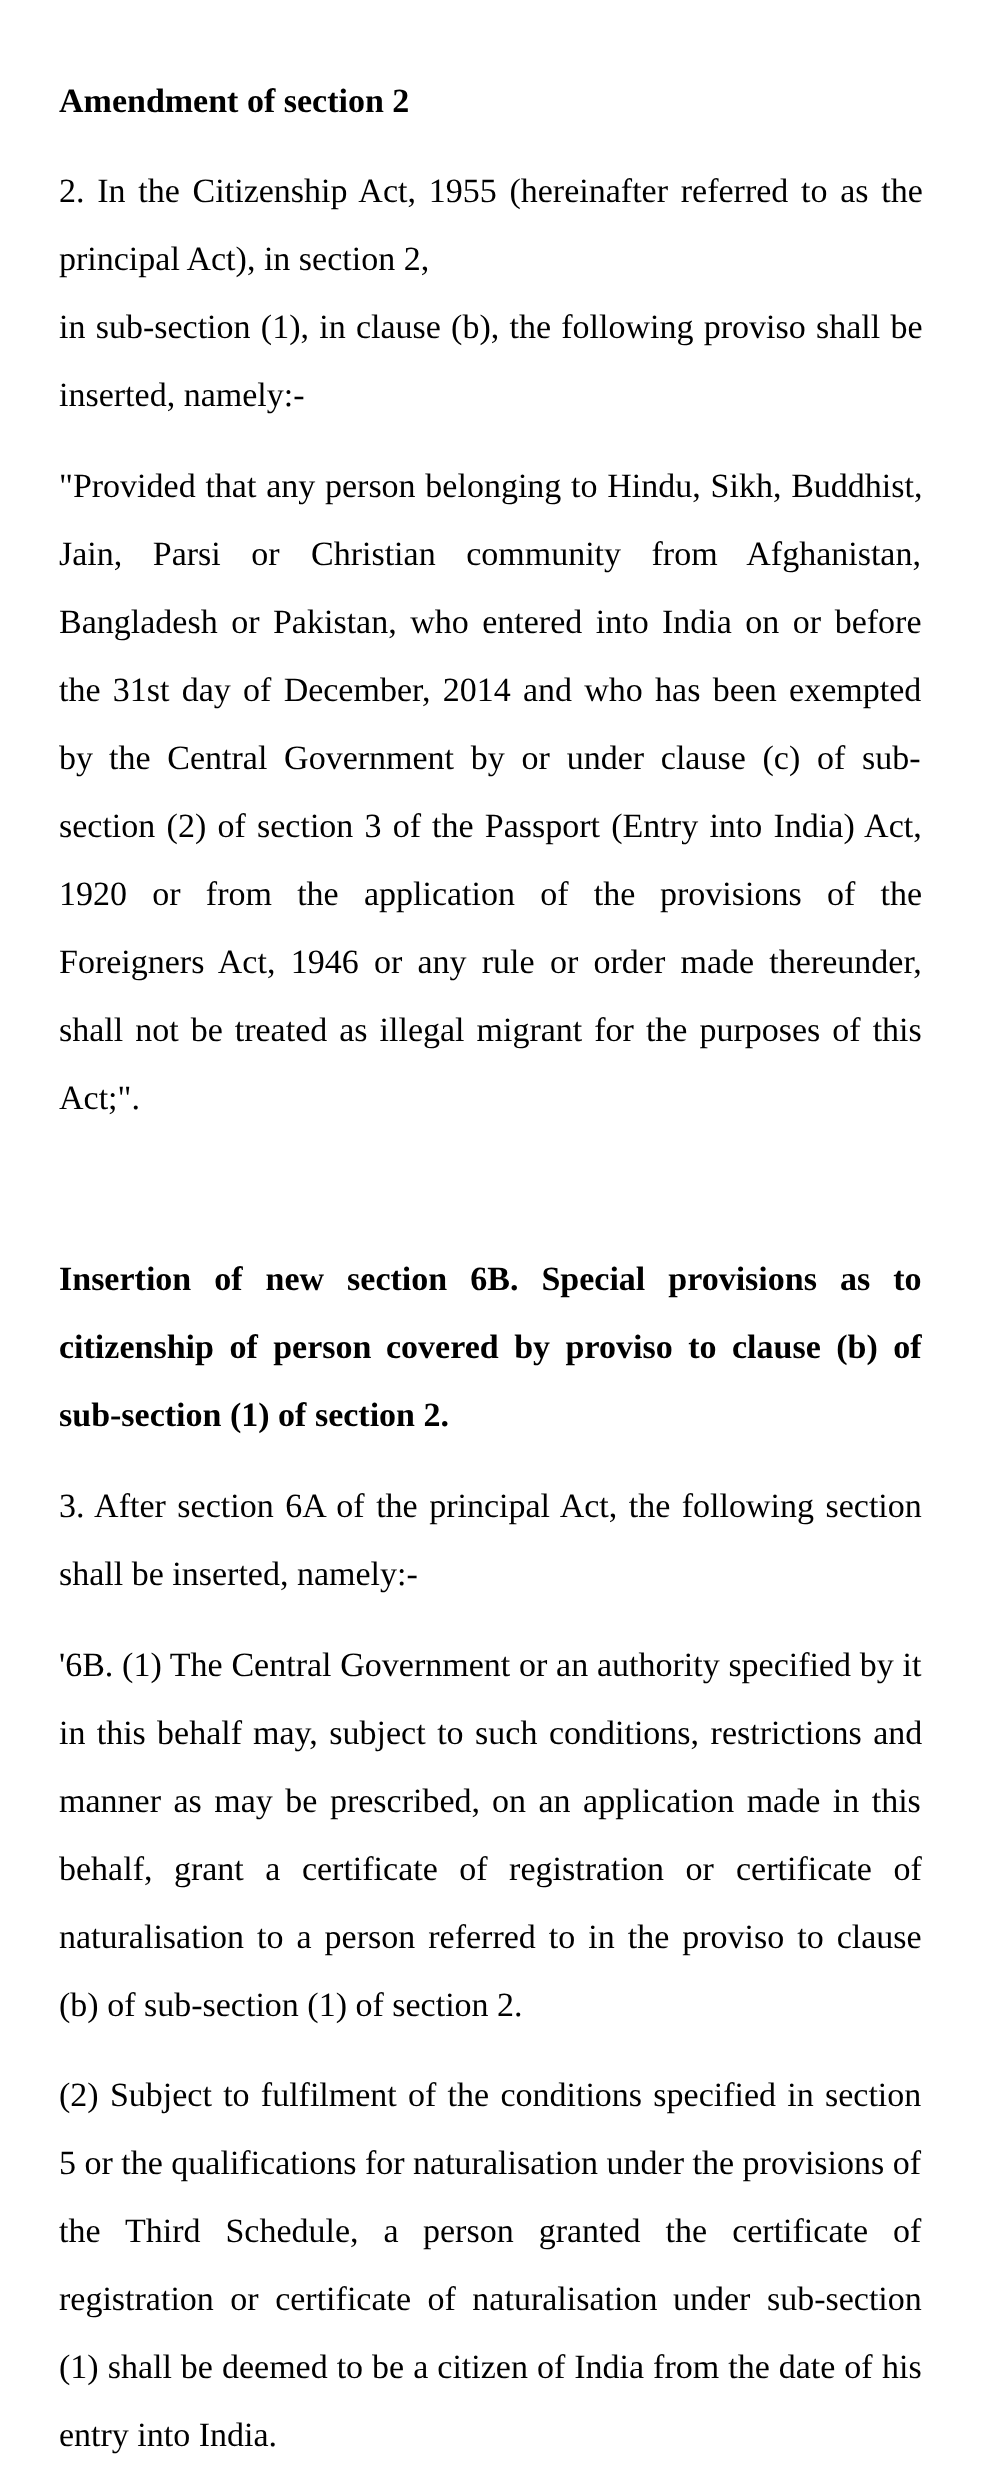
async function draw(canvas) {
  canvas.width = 987
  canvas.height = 2482
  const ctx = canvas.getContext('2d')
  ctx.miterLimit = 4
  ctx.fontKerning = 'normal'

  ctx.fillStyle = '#fff'
  ctx.fillRect(0, 0, 987, 2482)
  ctx.font = 'bold 34px Liberation Serif'
  ctx.fillStyle = '#000'
  ctx.fillText('Amendment of section 2', 59, 112)
  ctx.wordSpacing = '4.25px'
  ctx.font = '34px Liberation Serif'
  ctx.fillText('2. In the Citizenship Act, 1955 (hereinafter referred to as the', 59, 202)
  ctx.wordSpacing = '0px'
  ctx.fillText('principal Act), in section 2,', 59, 270)
  ctx.wordSpacing = '1.75px'
  ctx.fillText('in sub-section (1), in clause (b), the following proviso shall be', 59, 338)
  ctx.wordSpacing = '0px'
  ctx.fillText('inserted, namely:-', 59, 406)
  ctx.wordSpacing = '1.25px'
  ctx.fillText('"Provided that any person belonging to Hindu, Sikh, Buddhist,', 59, 497)
  ctx.wordSpacing = '22px'
  ctx.fillText('Jain, Parsi or', 59, 565)
  ctx.fillText('Christian community from Afghanistan,', 311, 565)
  ctx.wordSpacing = '5px'
  ctx.fillText('Bangladesh or Pakistan, who entered into', 59, 633)
  ctx.fillText('India on or before', 662, 633)
  ctx.wordSpacing = '3.75px'
  ctx.fillText('the 31st day of December, 2014 and who has been exempted', 59, 701)
  ctx.wordSpacing = '0px'
  ctx.fillText('by', 59, 769)
  ctx.wordSpacing = '8.25px'
  ctx.fillText('the Central Government by or under clause (c) of sub-', 109, 769)
  ctx.wordSpacing = '2.75px'
  ctx.fillText('section (2) of section 3 of', 59, 837)
  ctx.fillText('the Passport (Entry into India) Act,', 432, 837)
  ctx.wordSpacing = '16.75px'
  ctx.fillText('1920 or from the application of the', 59, 905)
  ctx.fillText('provisions of the', 660, 905)
  ctx.wordSpacing = '6.75px'
  ctx.fillText('Foreigners Act, 1946 or any rule or order made thereunder,', 59, 973)
  ctx.wordSpacing = '3.5px'
  ctx.fillText('shall not be treated as illegal migrant for the purposes of this', 59, 1041)
  ctx.wordSpacing = '0px'
  ctx.fillText('Act;".', 59, 1109)
  ctx.wordSpacing = '14.5px'
  ctx.font = 'bold 34px Liberation Serif'
  ctx.fillText('Insertion of new section 6B. Special provisions as to', 59, 1290)
  ctx.wordSpacing = '7px'
  ctx.fillText('citizenship of person', 59, 1358)
  ctx.fillText('covered by proviso to clause (b) of', 386, 1358)
  ctx.wordSpacing = '0px'
  ctx.fillText('sub-section (1) of section 2.', 59, 1426)
  ctx.wordSpacing = '3px'
  ctx.font = '34px Liberation Serif'
  ctx.fillText('3. After section 6A of the principal Act, the following section', 59, 1517)
  ctx.wordSpacing = '0px'
  ctx.fillText('shall be inserted, namely:-', 59, 1585)
  ctx.wordSpacing = '0.25px'
  ctx.fillText('\'6B. (1) The Central Government or an authority specified by it', 59, 1676)
  ctx.wordSpacing = '2.75px'
  ctx.fillText('in this behalf', 59, 1744)
  ctx.wordSpacing = '3px'
  ctx.fillText('may, subject to such conditions, restrictions and', 253, 1744)
  ctx.wordSpacing = '4px'
  ctx.fillText('manner as may be prescribed,', 59, 1812)
  ctx.fillText('on an application made in this', 492, 1812)
  ctx.wordSpacing = '13px'
  ctx.fillText('behalf, grant a certificate of registration or', 59, 1880)
  ctx.fillText('certificate of', 736, 1880)
  ctx.wordSpacing = '4.5px'
  ctx.fillText('naturalisation to a person referred to in the proviso to clause', 59, 1948)
  ctx.wordSpacing = '0px'
  ctx.fillText('(b) of sub-section (1) of section 2.', 59, 2016)
  ctx.wordSpacing = '2.75px'
  ctx.fillText('(2) Subject to fulfilment of the conditions specified in section', 59, 2106)
  ctx.wordSpacing = '0px'
  ctx.fillText('5 or the qualifications for naturalisation under the provisions of', 59, 2174)
  ctx.wordSpacing = '16.5px'
  ctx.fillText('the Third Schedule, a', 59, 2242)
  ctx.fillText('person granted the certificate of', 423, 2242)
  ctx.wordSpacing = '8px'
  ctx.fillText('registration or certificate of naturalisation', 59, 2310)
  ctx.fillText('under sub-section', 673, 2310)
  ctx.wordSpacing = '0.5px'
  ctx.fillText('(1) shall be deemed to be a citizen of India from the date of', 59, 2378)
  ctx.wordSpacing = '0px'
  ctx.fillText('his', 882, 2378)
  ctx.fillText('entry into India.', 59, 2446)
}

draw(document.querySelector('canvas'))
